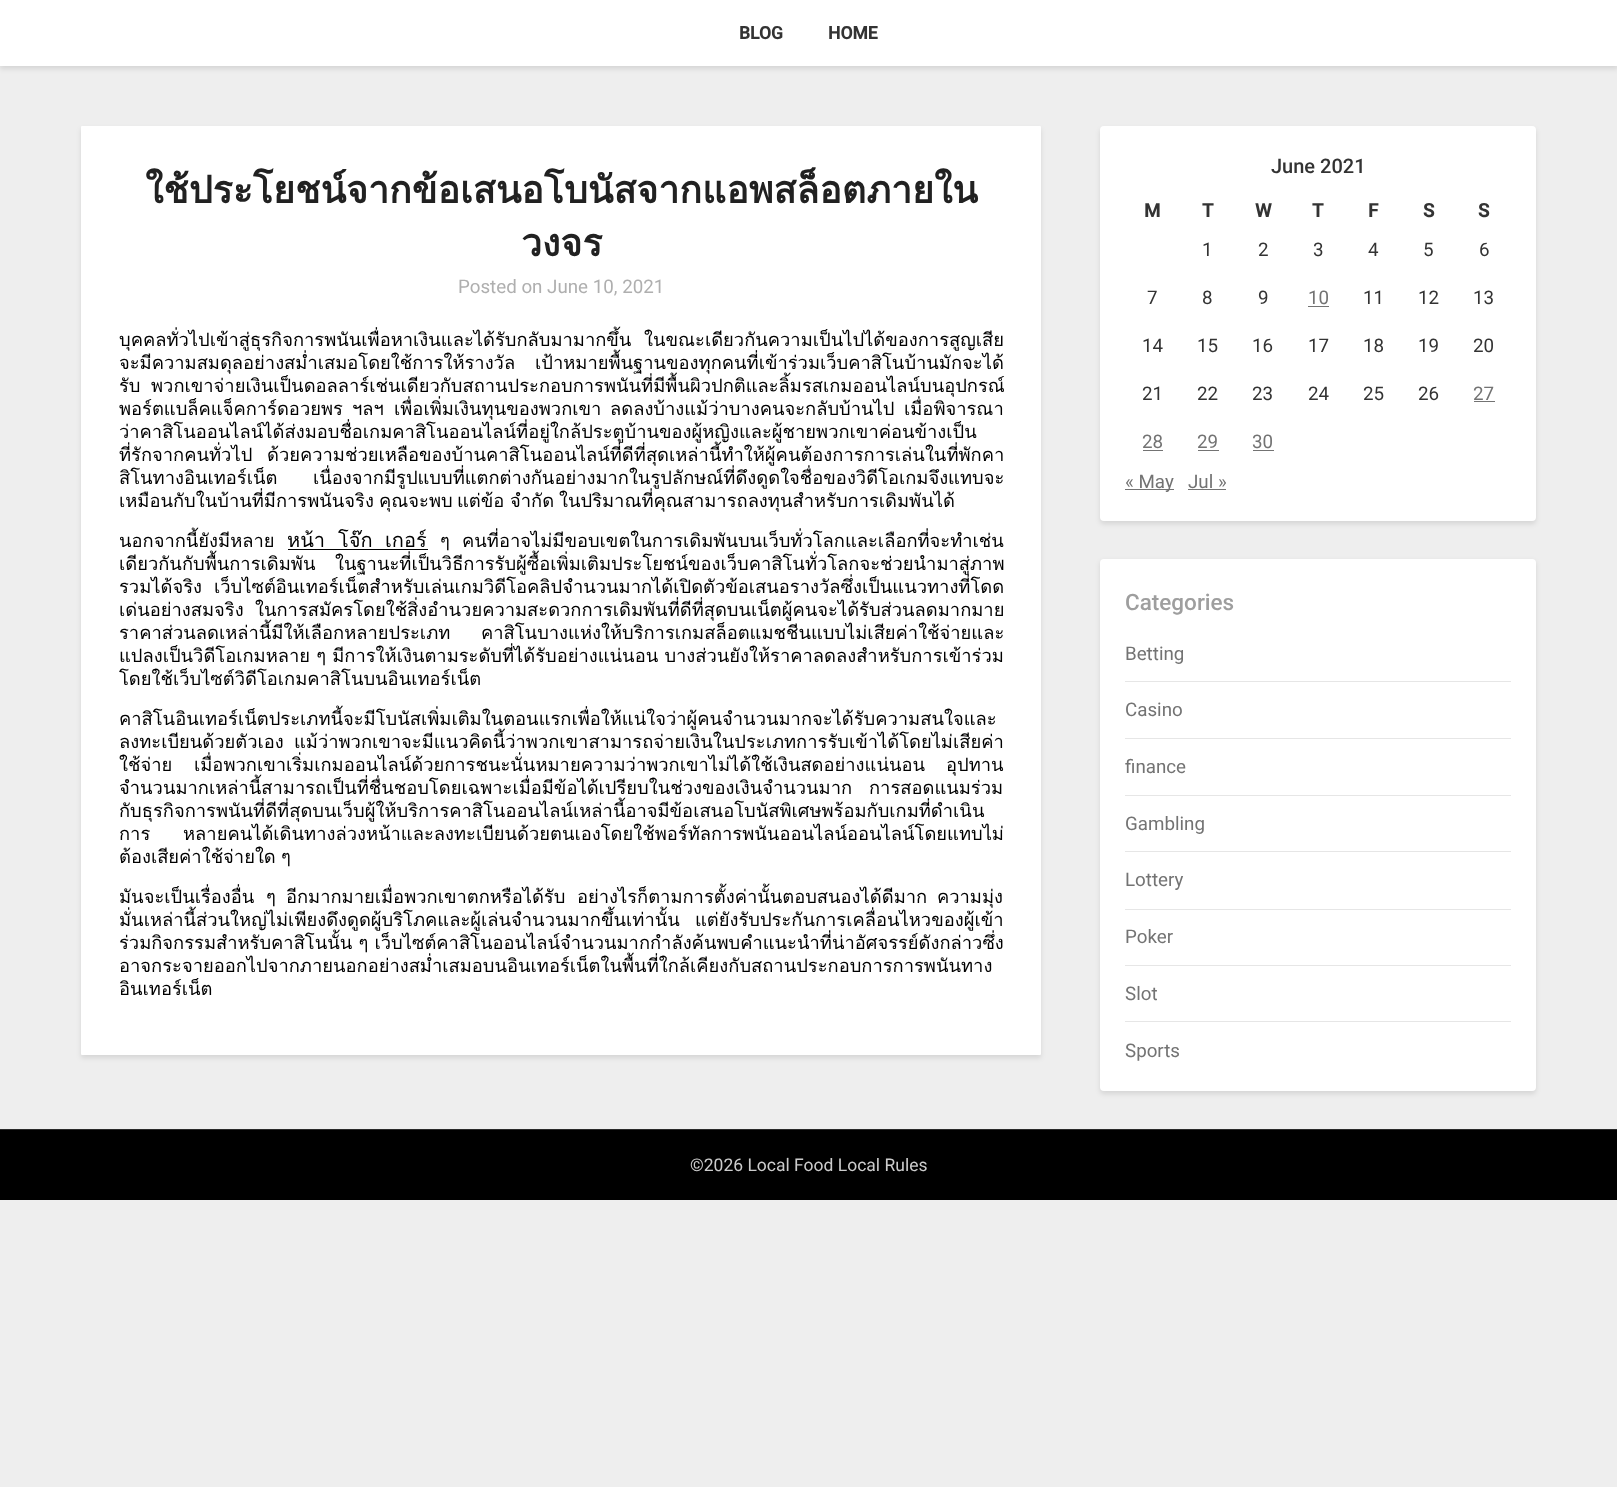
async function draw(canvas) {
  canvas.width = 1617
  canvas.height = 1487
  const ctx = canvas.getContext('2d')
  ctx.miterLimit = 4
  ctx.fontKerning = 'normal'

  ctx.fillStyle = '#eee'
  ctx.fillRect(0, 0, 1617, 1487)
  ctx.fillStyle = '#0000001a'
  ctx.filter = 'blur(2.5px)'
  ctx.beginPath()
  ctx.rect(0, 3, 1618, 66)
  ctx.fill()
  ctx.filter = 'none'
  ctx.fillStyle = '#fff'
  ctx.fillRect(0, 0, 1617, 66)
  ctx.font = 'bold 17.5px Roboto'
  ctx.fillStyle = '#333'
  ctx.fillText('BLOG', 739, 39)
  ctx.fillText('HOME', 828, 39)
  ctx.fillStyle = '#0000001a'
  ctx.filter = 'blur(2.5px)'
  ctx.beginPath()
  ctx.roundRect(81, 129, 960, 929, 1)
  ctx.fill()
  ctx.filter = 'none'
  ctx.fillStyle = '#fff'
  ctx.beginPath()
  ctx.roundRect(81, 126, 960, 929, 1)
  ctx.fill()
  ctx.font = 'bold 37.5px Loma'
  ctx.fillStyle = '#212121'
  ctx.fillText('ใช้ประโยชน์จากข้อเสนอโบนัสจากแอพสล็อตภายใน', 145, 203)
  ctx.fillText('วงจร', 521, 256)
  ctx.font = '18.75px Roboto'
  ctx.fillStyle = '#afafaf'
  ctx.fillText('Posted on June 10, 2021', 458, 293)
  ctx.font = '18.35px Loma'
  ctx.fillStyle = '#000'
  ctx.fillText('บุคคลทั่วไปเข้าสู่ธุรกิจการพนันเพื่อหาเงินและได้รับกลับมามากขึ้น', 119, 346)
  ctx.fillText('ในขณะเดียวกันความเป็นไปได้ของการสูญเสีย', 644, 346)
  ctx.fillText('จะมีความสมดุลอย่างสม่ำเสมอโดยใช้การให้รางวัล', 119, 369)
  ctx.fillText('เป้าหมายพื้นฐานของทุกคนที่เข้าร่วมเว็บคาสิโนบ้านมักจะได้', 535, 369)
  ctx.fillText('รับ', 119, 392)
  ctx.fillText('พวกเขาจ่ายเงินเป็นดอลลาร์เช่นเดียวกับสถานประกอบการพนันที่มีพื้นผิวปกติและลิ้มรสเกมออนไลน์บนอุปกรณ์', 151, 392)
  ctx.fillText('พอร์ตแบล็คแจ็คการ์ดอวยพร', 119, 415)
  ctx.fillText('ฯลฯ', 352, 415)
  ctx.fillText('เพื่อเพิ่มเงินทุนของพวกเขา', 394, 415)
  ctx.fillText('ลดลงบ้างแม้ว่าบางคนจะกลับบ้านไป', 610, 415)
  ctx.fillText('เมื่อพิจารณา', 904, 415)
  ctx.fillText('ว่าคาสิโนออนไลน์ได้ส่งมอบชื่อเกมคาสิโนออนไลน์ที่อยู่ใกล้ประตูบ้านของผู้หญิงและผู้ชายพวกเขาค่อนข้างเป็น', 119, 438)
  ctx.fillText('ที่รักจากคนทั่วไป', 119, 461)
  ctx.fillText('ด้วยความช่วยเหลือของบ้านคาสิโนออนไลน์ที่ดีที่สุดเหล่านี้ทำให้ผู้คนต้องการการเล่นในที่พักคา', 267, 461)
  ctx.fillText('สิโนทางอินเทอร์เน็ต', 119, 484)
  ctx.fillText('เนื่องจากมีรูปแบบที่แตกต่างกันอย่างมากในรูปลักษณ์ที่ดึงดูดใจชื่อของวิดีโอเกมจึงแทบจะ', 313, 484)
  ctx.fillText('เหมือนกับในบ้านที่มีการพนันจริง', 119, 507)
  ctx.fillText('คุณจะพบ', 379, 507)
  ctx.fillText('แต่ข้อ', 457, 507)
  ctx.fillText('จำกัด', 510, 507)
  ctx.fillText('ในปริมาณที่คุณสามารถลงทุนสำหรับการเดิมพันได้', 559, 507)
  ctx.fillText('นอกจากนี้ยังมีหลาย', 119, 547)
  ctx.font = '20px Loma'
  ctx.fillText('หน้า', 287, 547)
  ctx.fillRect(288, 549, 140, 1)
  ctx.fillText('โจ๊ก', 338, 547)
  ctx.fillText('เกอร์', 385, 547)
  ctx.font = '18.35px Loma'
  ctx.fillText('ๆ', 440, 547)
  ctx.fillText('คนที่อาจไม่มีขอบเขตในการเดิมพันบนเว็บทั่วโลกและเลือกที่จะทำเช่น', 462, 547)
  ctx.fillText('เดียวกันกับพื้นการเดิมพัน', 119, 570)
  ctx.fillText('ในฐานะที่เป็นวิธีการรับผู้ซื้อเพิ่มเติมประโยชน์ของเว็บคาสิโนทั่วโลกจะช่วยนำมาสู่ภาพ', 335, 570)
  ctx.fillText('รวมได้จริง', 119, 593)
  ctx.fillText('เว็บไซต์อินเทอร์เน็ตสำหรับเล่นเกมวิดีโอคลิปจำนวนมากได้เปิดตัวข้อเสนอรางวัลซึ่งเป็นแนวทางที่โดด', 214, 593)
  ctx.fillText('เด่นอย่างสมจริง', 119, 616)
  ctx.fillText('ในการสมัครโดยใช้สิ่งอำนวยความสะดวกการเดิมพันที่ดีที่สุดบนเน็ตผู้คนจะได้รับส่วนลดมากมาย', 255, 616)
  ctx.fillText('ราคาส่วนลดเหล่านี้มีให้เลือกหลายประเภท', 119, 639)
  ctx.fillText('คาสิโนบางแห่งให้บริการเกมสล็อตแมชชีนแบบไม่เสียค่าใช้จ่ายและ', 481, 639)
  ctx.fillText('แปลงเป็นวิดีโอเกมหลาย ๆ มีการให้เงินตามระดับที่ได้รับอย่างแน่นอน บางส่วนยังให้ราคาลดลงสำหรับการเข้าร่วม', 119, 662)
  ctx.fillText('โดยใช้เว็บไซต์วิดีโอเกมคาสิโนบนอินเทอร์เน็ต', 119, 685)
  ctx.fillText('คาสิโนอินเทอร์เน็ตประเภทนี้จะมีโบนัสเพิ่มเติมในตอนแรกเพื่อให้แน่ใจว่าผู้คนจำนวนมากจะได้รับความสนใจและ', 119, 725)
  ctx.fillText('ลงทะเบียนด้วยตัวเอง', 119, 748)
  ctx.fillText('แม้ว่าพวกเขาจะมีแนวคิดนี้ว่าพวกเขาสามารถจ่ายเงินในประเภทการรับเข้าได้โดยไม่เสียค่า', 294, 748)
  ctx.fillText('ใช้จ่าย', 119, 771)
  ctx.fillText('เมื่อพวกเขาเริ่มเกมออนไลน์ด้วยการชนะนั่นหมายความว่าพวกเขาไม่ได้ใช้เงินสดอย่างแน่นอน', 194, 771)
  ctx.fillText('อุปทาน', 946, 771)
  ctx.fillText('จำนวนมากเหล่านี้สามารถเป็นที่ชื่นชอบโดยเฉพาะเมื่อมีข้อได้เปรียบในช่วงของเงินจำนวนมาก', 119, 794)
  ctx.fillText('การสอดแนมร่วม', 869, 794)
  ctx.fillText('กับธุรกิจการพนันที่ดีที่สุดบนเว็บผู้ให้บริการคาสิโนออนไลน์เหล่านี้อาจมีข้อเสนอโบนัสพิเศษพร้อมกับเกมที่ดำเนิน', 119, 817)
  ctx.fillText('การ', 119, 840)
  ctx.fillText('หลายคนได้เดินทางล่วงหน้าและลงทะเบียนด้วยตนเองโดยใช้พอร์ทัลการพนันออนไลน์ออนไลน์โดยแทบไม่', 183, 840)
  ctx.fillText('ต้องเสียค่าใช้จ่ายใด', 119, 863)
  ctx.fillText('ๆ', 281, 863)
  ctx.fillText('มันจะเป็นเรื่องอื่น', 119, 903)
  ctx.fillText('ๆ', 266, 903)
  ctx.fillText('อีกมากมายเมื่อพวกเขาตกหรือได้รับ', 286, 903)
  ctx.fillText('อย่างไรก็ตามการตั้งค่านั้นตอบสนองได้ดีมาก', 577, 903)
  ctx.fillText('ความมุ่ง', 937, 903)
  ctx.fillText('มั่นเหล่านี้ส่วนใหญ่ไม่เพียงดึงดูดผู้บริโภคและผู้เล่นจำนวนมากขึ้นเท่านั้น', 119, 926)
  ctx.fillText('แต่ยังรับประกันการเคลื่อนไหวของผู้เข้า', 695, 926)
  ctx.fillText('ร่วมกิจกรรมสำหรับคาสิโนนั้น ๆ เว็บไซต์คาสิโนออนไลน์จำนวนมากกำลังค้นพบคำแนะนำที่น่าอัศจรรย์ดังกล่าวซึ่ง', 119, 949)
  ctx.fillText('อาจกระจายออกไปจากภายนอกอย่างสม่ำเสมอบนอินเทอร์เน็ตในพื้นที่ใกล้เคียงกับสถานประกอบการการพนันทาง', 119, 972)
  ctx.fillText('อินเทอร์เน็ต', 119, 995)
  ctx.fillStyle = '#0000001a'
  ctx.filter = 'blur(2.5px)'
  ctx.beginPath()
  ctx.roundRect(1100, 129, 436, 395, 4)
  ctx.fill()
  ctx.filter = 'none'
  ctx.fillStyle = '#fff'
  ctx.beginPath()
  ctx.roundRect(1100, 126, 436, 395, 4)
  ctx.fill()
  ctx.font = '500 20px Roboto'
  ctx.fillStyle = '#333'
  ctx.fillText('June 2021', 1271, 173)
  ctx.font = 'bold 18.75px Roboto'
  ctx.fillText('M', 1144, 217)
  ctx.fillText('T', 1202, 217)
  ctx.fillText('W', 1255, 217)
  ctx.fillText('T', 1312, 217)
  ctx.fillText('F', 1368, 217)
  ctx.fillText('S', 1423, 217)
  ctx.fillText('S', 1478, 217)
  ctx.font = '18.75px Roboto'
  ctx.fillText('1', 1202, 256)
  ctx.fillText('2', 1258, 256)
  ctx.fillText('3', 1313, 256)
  ctx.fillText('4', 1368, 256)
  ctx.fillText('5', 1423, 256)
  ctx.fillText('6', 1479, 256)
  ctx.fillText('7', 1147, 304)
  ctx.fillText('8', 1202, 304)
  ctx.fillText('9', 1258, 304)
  ctx.fillStyle = '#737373'
  ctx.fillText('10', 1308, 304)
  ctx.fillRect(1308, 306, 21, 1)
  ctx.fillStyle = '#333'
  ctx.fillText('11', 1363, 304)
  ctx.fillText('12', 1418, 304)
  ctx.fillText('13', 1473, 304)
  ctx.fillText('14', 1142, 352)
  ctx.fillText('15', 1197, 352)
  ctx.fillText('16', 1252, 352)
  ctx.fillText('17', 1308, 352)
  ctx.fillText('18', 1363, 352)
  ctx.fillText('19', 1418, 352)
  ctx.fillText('20', 1473, 352)
  ctx.fillText('21', 1142, 400)
  ctx.fillText('22', 1197, 400)
  ctx.fillText('23', 1252, 400)
  ctx.fillText('24', 1308, 400)
  ctx.fillText('25', 1363, 400)
  ctx.fillText('26', 1418, 400)
  ctx.fillStyle = '#737373'
  ctx.fillText('27', 1473, 400)
  ctx.fillRect(1474, 401, 21, 1)
  ctx.fillText('28', 1142, 448)
  ctx.fillRect(1143, 450, 20, 1)
  ctx.fillText('29', 1197, 448)
  ctx.fillRect(1198, 450, 21, 1)
  ctx.fillText('30', 1252, 448)
  ctx.fillRect(1253, 450, 21, 1)
  ctx.fillRect(1125, 489, 49, 1)
  ctx.fillText('« May', 1125, 488)
  ctx.fillText('Jul »', 1188, 488)
  ctx.fillRect(1188, 489, 38, 1)
  ctx.fillStyle = '#0000001a'
  ctx.filter = 'blur(2.5px)'
  ctx.beginPath()
  ctx.roundRect(1100, 561, 436, 533, 4)
  ctx.fill()
  ctx.filter = 'none'
  ctx.fillStyle = '#fff'
  ctx.beginPath()
  ctx.roundRect(1100, 559, 436, 532, 4)
  ctx.fill()
  ctx.font = '500 22.5px Roboto'
  ctx.fillStyle = '#9e9e9e'
  ctx.fillText('Categories', 1125, 610)
  ctx.fillStyle = '#e6e6e6'
  ctx.fillRect(1125, 681, 386, 1)
  ctx.font = '18.75px Roboto'
  ctx.fillStyle = '#737373'
  ctx.fillText('Betting', 1125, 660)
  ctx.fillStyle = '#e6e6e6'
  ctx.fillRect(1125, 738, 386, 1)
  ctx.fillStyle = '#737373'
  ctx.fillText('Casino', 1125, 716)
  ctx.fillStyle = '#e6e6e6'
  ctx.fillRect(1125, 795, 386, 1)
  ctx.fillStyle = '#737373'
  ctx.fillText('finance', 1125, 773)
  ctx.fillStyle = '#e6e6e6'
  ctx.fillRect(1125, 851, 386, 1)
  ctx.fillStyle = '#737373'
  ctx.fillText('Gambling', 1125, 830)
  ctx.fillStyle = '#e6e6e6'
  ctx.fillRect(1125, 909, 386, 1)
  ctx.fillStyle = '#737373'
  ctx.fillText('Lottery', 1125, 886)
  ctx.fillStyle = '#e6e6e6'
  ctx.fillRect(1125, 965, 386, 1)
  ctx.fillStyle = '#737373'
  ctx.fillText('Poker', 1125, 943)
  ctx.fillStyle = '#e6e6e6'
  ctx.fillRect(1125, 1021, 386, 1)
  ctx.fillStyle = '#737373'
  ctx.fillText('Slot', 1125, 1000)
  ctx.fillText('Sports', 1125, 1057)
  ctx.fillStyle = '#000'
  ctx.fillRect(0, 1130, 1617, 70)
  ctx.fillStyle = '#292929'
  ctx.fillRect(0, 1129, 1617, 1)
  ctx.font = '17.5px Roboto'
  ctx.fillStyle = '#ccc'
  ctx.fillText('©2026 Local Food Local Rules', 690, 1171)
}

draw(document.querySelector('canvas'))
